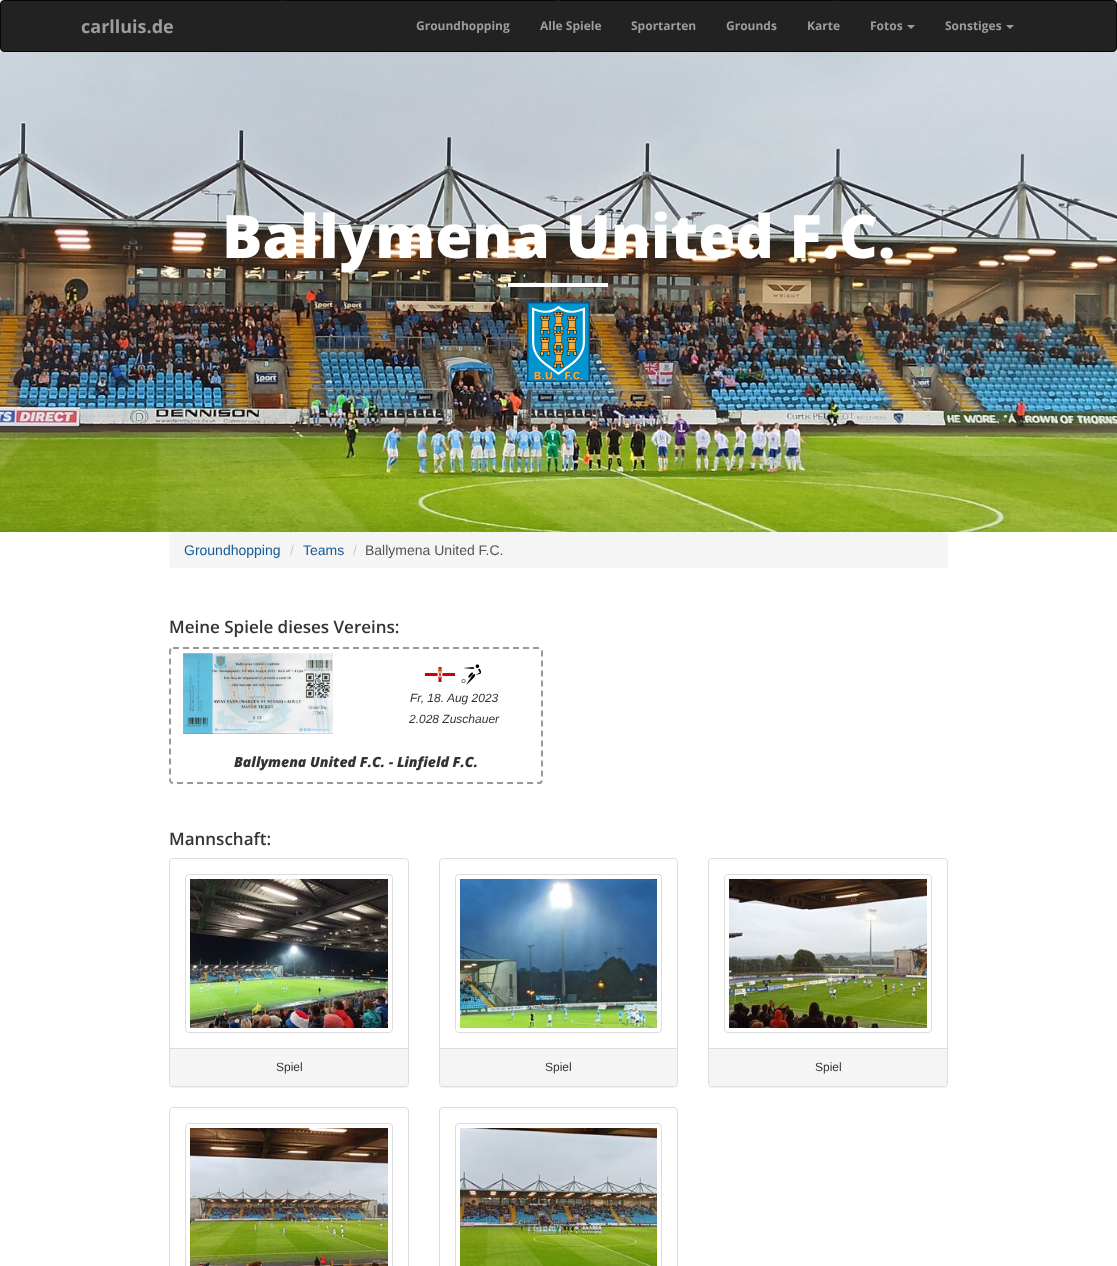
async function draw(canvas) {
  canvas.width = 1117
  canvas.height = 1266
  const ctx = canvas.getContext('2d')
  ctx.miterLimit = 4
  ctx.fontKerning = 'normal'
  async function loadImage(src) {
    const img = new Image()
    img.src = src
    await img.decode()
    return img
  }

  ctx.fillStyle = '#fff'
  ctx.fillRect(0, 0, 1117, 1266)
  ctx.fillStyle = '#222'
  ctx.beginPath()
  ctx.roundRect(0.5, 0.5, 1116, 51, 3.5)
  ctx.fill()
  ctx.strokeStyle = '#080808'
  ctx.stroke()
  ctx.font = 'bold 18px Open Sans'
  ctx.fillStyle = '#9d9d9d'
  ctx.fillText('carlluis.de', 81, 33)
  ctx.font = 'bold 12px Open Sans'
  ctx.fillText('Groundhopping', 416, 30)
  ctx.fillText('Alle Spiele', 540, 30)
  ctx.fillText('Sportarten', 631, 30)
  ctx.fillText('Grounds', 726, 30)
  ctx.fillText('Karte', 807, 30)
  ctx.fillText('Fotos', 870, 30)
  ctx.beginPath()
  ctx.moveTo(907, 25)
  ctx.lineTo(915, 25)
  ctx.lineTo(911, 29)
  ctx.closePath()
  ctx.fill()
  ctx.fillText('Sonstiges', 945, 30)
  ctx.beginPath()
  ctx.moveTo(1006, 25)
  ctx.lineTo(1014, 25)
  ctx.lineTo(1010, 29)
  ctx.closePath()
  ctx.fill()
  ctx.drawImage(await loadImage('image0.png'), 0, 52, 1117, 480)
  ctx.font = '800 60px Open Sans'
  ctx.fillStyle = '#fff'
  ctx.fillText('Ballymena United F.C.', 222, 258)
  ctx.fillRect(508, 283, 100, 4)
  ctx.drawImage(await loadImage('image1.png'), 527, 302, 63, 80)
  ctx.fillStyle = '#f5f5f5'
  ctx.beginPath()
  ctx.roundRect(169, 532, 779, 36, 4)
  ctx.fill()
  ctx.font = '14px Liberation Sans'
  ctx.fillStyle = '#135a97'
  ctx.fillText('Groundhopping', 184, 555)
  ctx.fillStyle = '#ccc'
  ctx.fillText('/', 290, 555)
  ctx.fillStyle = '#135a97'
  ctx.fillText('Teams', 303, 555)
  ctx.fillStyle = '#ccc'
  ctx.fillText('/', 353, 555)
  ctx.fillStyle = '#555'
  ctx.fillText('Ballymena United F.C.', 365, 555)
  ctx.font = '600 17px Open Sans'
  ctx.fillStyle = '#333'
  ctx.fillText('Meine Spiele dieses Vereins:', 169, 633)
  ctx.beginPath()
  ctx.moveTo(173, 648)
  ctx.lineTo(539, 648)
  ctx.bezierCurveTo(540.5, 648, 542, 649.5, 542, 651)
  ctx.lineTo(542, 780)
  ctx.bezierCurveTo(542, 781.5, 540.5, 783, 539, 783)
  ctx.lineTo(173, 783)
  ctx.bezierCurveTo(171.5, 783, 170, 781.5, 170, 780)
  ctx.lineTo(170, 651)
  ctx.bezierCurveTo(170, 649.5, 171.5, 648, 173, 648)
  ctx.closePath()
  ctx.strokeStyle = '#999'
  ctx.lineWidth = 2
  ctx.setLineDash([6, 4])
  ctx.stroke()
  ctx.drawImage(await loadImage('image2.png'), 183, 653, 150, 81)
  ctx.drawImage(await loadImage('image3.png'), 425, 667, 30, 15)
  ctx.drawImage(await loadImage('image4.png'), 461, 664, 21, 21)
  ctx.font = 'italic 12px Liberation Sans'
  ctx.fillText('Fr, 18. Aug 2023', 410, 702)
  ctx.fillText('2.028 Zuschauer', 409, 723)
  ctx.font = 'italic 800 14px Open Sans'
  ctx.fillText('Ballymena United F.C. - Linfield F.C.', 234, 767)
  ctx.font = '600 17px Open Sans'
  ctx.fillText('Mannschaft:', 169, 845)
  ctx.fillStyle = '#0000000d'
  ctx.filter = 'blur(0.5px)'
  ctx.beginPath()
  ctx.roundRect(169, 859, 240, 229, 4)
  ctx.fill()
  ctx.filter = 'none'
  ctx.fillStyle = '#fff'
  ctx.beginPath()
  ctx.roundRect(169.5, 858.5, 239, 228, 3.5)
  ctx.fill()
  ctx.strokeStyle = '#ddd'
  ctx.lineWidth = 1
  ctx.setLineDash([])
  ctx.stroke()
  ctx.beginPath()
  ctx.roundRect(185.5, 874.5, 207, 158, 3.5)
  ctx.stroke()
  ctx.drawImage(await loadImage('image5.png'), 190, 879, 198, 149)
  ctx.fillStyle = '#f5f5f5'
  ctx.beginPath()
  ctx.roundRect(170, 1048, 238, 38, [0, 0, 3, 3])
  ctx.fill()
  ctx.fillStyle = '#ddd'
  ctx.fillRect(170, 1048, 238, 1)
  ctx.font = '12px Liberation Sans'
  ctx.fillStyle = '#333'
  ctx.fillText('Spiel', 276, 1071)
  ctx.fillStyle = '#0000000d'
  ctx.filter = 'blur(0.5px)'
  ctx.beginPath()
  ctx.roundRect(439, 859, 239, 229, 4)
  ctx.fill()
  ctx.filter = 'none'
  ctx.fillStyle = '#fff'
  ctx.beginPath()
  ctx.roundRect(439.5, 858.5, 238, 228, 3.5)
  ctx.fill()
  ctx.stroke()
  ctx.beginPath()
  ctx.roundRect(455.5, 874.5, 206, 158, 3.5)
  ctx.stroke()
  ctx.drawImage(await loadImage('image6.png'), 460, 879, 197, 149)
  ctx.fillStyle = '#f5f5f5'
  ctx.beginPath()
  ctx.roundRect(440, 1048, 237, 38, [0, 0, 3, 3])
  ctx.fill()
  ctx.fillStyle = '#ddd'
  ctx.fillRect(440, 1048, 237, 1)
  ctx.fillStyle = '#333'
  ctx.fillText('Spiel', 545, 1071)
  ctx.fillStyle = '#0000000d'
  ctx.filter = 'blur(0.5px)'
  ctx.beginPath()
  ctx.roundRect(708, 859, 240, 229, 4)
  ctx.fill()
  ctx.filter = 'none'
  ctx.fillStyle = '#fff'
  ctx.beginPath()
  ctx.roundRect(708.5, 858.5, 239, 228, 3.5)
  ctx.fill()
  ctx.stroke()
  ctx.beginPath()
  ctx.roundRect(724.5, 874.5, 207, 158, 3.5)
  ctx.stroke()
  ctx.drawImage(await loadImage('image7.png'), 729, 879, 198, 149)
  ctx.fillStyle = '#f5f5f5'
  ctx.beginPath()
  ctx.roundRect(709, 1048, 238, 38, [0, 0, 3, 3])
  ctx.fill()
  ctx.fillStyle = '#ddd'
  ctx.fillRect(709, 1048, 238, 1)
  ctx.fillStyle = '#333'
  ctx.fillText('Spiel', 815, 1071)
  ctx.beginPath()
  ctx.roundRect(169.5, 1107.5, 239, 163, 3.5)
  ctx.stroke()
  ctx.beginPath()
  ctx.roundRect(185.5, 1123.5, 207, 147, 3.5)
  ctx.stroke()
  ctx.drawImage(await loadImage('image8.png'), 190, 1128, 198, 138)
  ctx.beginPath()
  ctx.roundRect(439.5, 1107.5, 238, 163, 3.5)
  ctx.stroke()
  ctx.beginPath()
  ctx.roundRect(455.5, 1123.5, 206, 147, 3.5)
  ctx.stroke()
  ctx.drawImage(await loadImage('image9.png'), 460, 1128, 197, 138)
}

draw(document.querySelector('canvas'))
